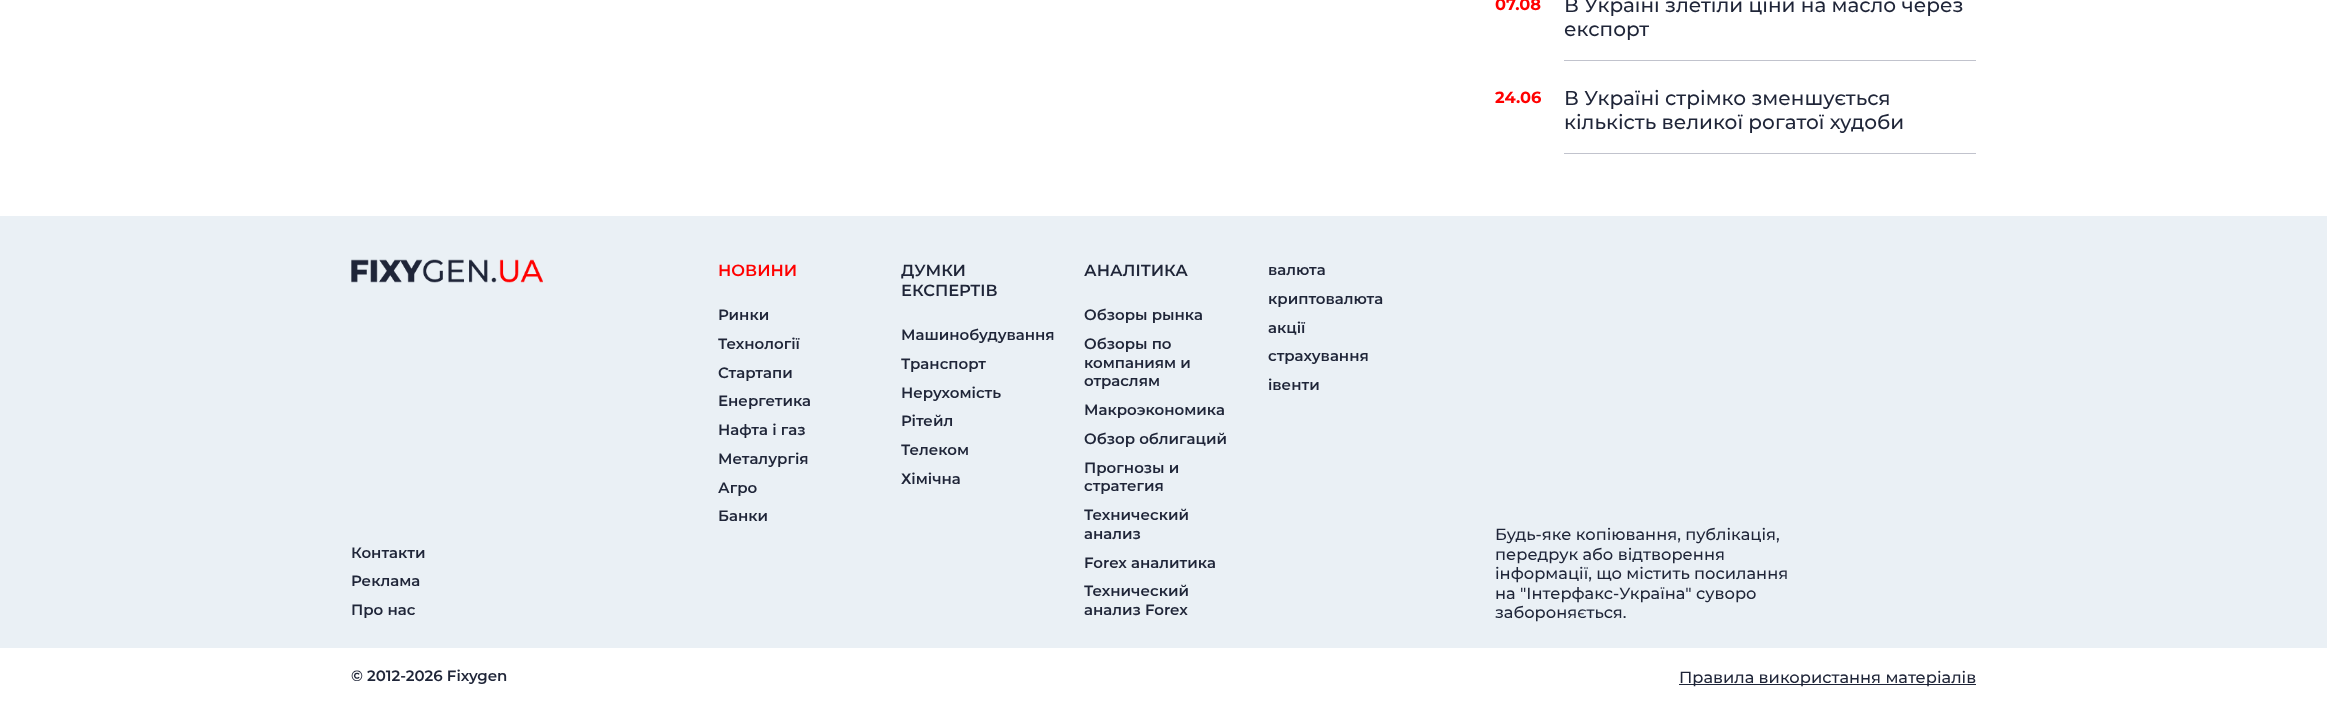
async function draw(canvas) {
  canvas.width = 2327
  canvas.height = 705
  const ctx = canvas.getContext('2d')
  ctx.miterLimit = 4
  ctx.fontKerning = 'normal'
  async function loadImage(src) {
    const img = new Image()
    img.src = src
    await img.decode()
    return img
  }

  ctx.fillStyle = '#fff'
  ctx.fillRect(0, 0, 2327, 705)
  ctx.fillStyle = '#c1c3cd'
  ctx.fillRect(1564, 60, 412, 1)
  ctx.font = 'bold 16.25px Montserrat'
  ctx.fillStyle = '#f00'
  ctx.fillText('07.08', 1495, 10)
  ctx.font = '500 20px Montserrat'
  ctx.fillStyle = '#1f2538'
  ctx.fillText('В Україні злетіли ціни на масло через', 1564, 12)
  ctx.fillText('експорт', 1564, 36)
  ctx.fillStyle = '#c1c3cd'
  ctx.fillRect(1564, 153, 412, 1)
  ctx.font = 'bold 16.25px Montserrat'
  ctx.fillStyle = '#f00'
  ctx.fillText('24.06', 1495, 103)
  ctx.font = '500 20px Montserrat'
  ctx.fillStyle = '#1f2538'
  ctx.fillText('В Україні стрімко зменшується', 1564, 105)
  ctx.fillText('кількість великої рогатої худоби', 1564, 129)
  ctx.fillStyle = '#eaf0f5'
  ctx.fillRect(0, 216, 2327, 432)
  ctx.drawImage(await loadImage('image0.png'), 351, 259, 192, 24)
  ctx.font = '600 15px Montserrat'
  ctx.fillStyle = '#1f2538'
  ctx.fillText('Контакти', 351, 558)
  ctx.fillText('Реклама', 351, 586)
  ctx.fillText('Про нас', 351, 615)
  ctx.font = '600 16.25px Montserrat'
  ctx.fillStyle = '#f00'
  ctx.fillText('НОВИНИ', 718, 276)
  ctx.font = '600 15px Montserrat'
  ctx.fillStyle = '#1f2538'
  ctx.fillText('Ринки', 718, 320)
  ctx.fillText('Технології', 718, 349)
  ctx.fillText('Стартапи', 718, 378)
  ctx.fillText('Енергетика', 718, 406)
  ctx.fillText('Нафта і газ', 718, 435)
  ctx.fillText('Металургія', 718, 464)
  ctx.fillText('Агро', 718, 493)
  ctx.fillText('Банки', 718, 521)
  ctx.font = '600 16.25px Montserrat'
  ctx.fillText('ДУМКИ', 901, 276)
  ctx.fillText('ЕКСПЕРТIВ', 901, 296)
  ctx.font = '600 15px Montserrat'
  ctx.fillText('Машинобудування', 901, 340)
  ctx.fillText('Транспорт', 901, 369)
  ctx.fillText('Нерухомість', 901, 398)
  ctx.fillText('Рітейл', 901, 426)
  ctx.fillText('Телеком', 901, 455)
  ctx.fillText('Хімічна', 901, 484)
  ctx.font = '600 16.25px Montserrat'
  ctx.fillText('АНАЛIТИКА', 1084, 276)
  ctx.font = '600 15px Montserrat'
  ctx.fillText('Обзоры рынка', 1084, 320)
  ctx.fillText('Обзоры по', 1084, 349)
  ctx.fillText('компаниям и', 1084, 368)
  ctx.fillText('отраслям', 1084, 386)
  ctx.fillText('Макроэкономика', 1084, 415)
  ctx.fillText('Обзор облигаций', 1084, 444)
  ctx.fillText('Прогнозы и', 1084, 473)
  ctx.fillText('стратегия', 1084, 491)
  ctx.fillText('Технический', 1084, 520)
  ctx.fillText('анализ', 1084, 539)
  ctx.fillText('Forex аналитика', 1084, 568)
  ctx.fillText('Технический', 1084, 596)
  ctx.fillText('анализ Forex', 1084, 615)
  ctx.fillText('валюта', 1268, 275)
  ctx.fillText('криптовалюта', 1268, 304)
  ctx.fillText('акції', 1268, 333)
  ctx.fillText('страхування', 1268, 361)
  ctx.fillText('iвенти', 1268, 390)
  ctx.font = '500 16.25px Montserrat'
  ctx.fillText('Будь-яке копіювання, публікація,', 1495, 540)
  ctx.fillText('передрук або відтворення', 1495, 560)
  ctx.fillText('інформації, що містить посилання', 1495, 579)
  ctx.fillText('на "Інтерфакс-Україна" суворо', 1495, 599)
  ctx.fillText('забороняється.', 1495, 618)
  ctx.font = '600 15px Montserrat'
  ctx.fillText('© 2012-2026 Fixygen', 351, 681)
  ctx.fillRect(1679, 684, 297, 1)
  ctx.font = '500 16.25px Montserrat'
  ctx.fillText('Правила використання матеріалів', 1679, 683)
}

draw(document.querySelector('canvas'))
